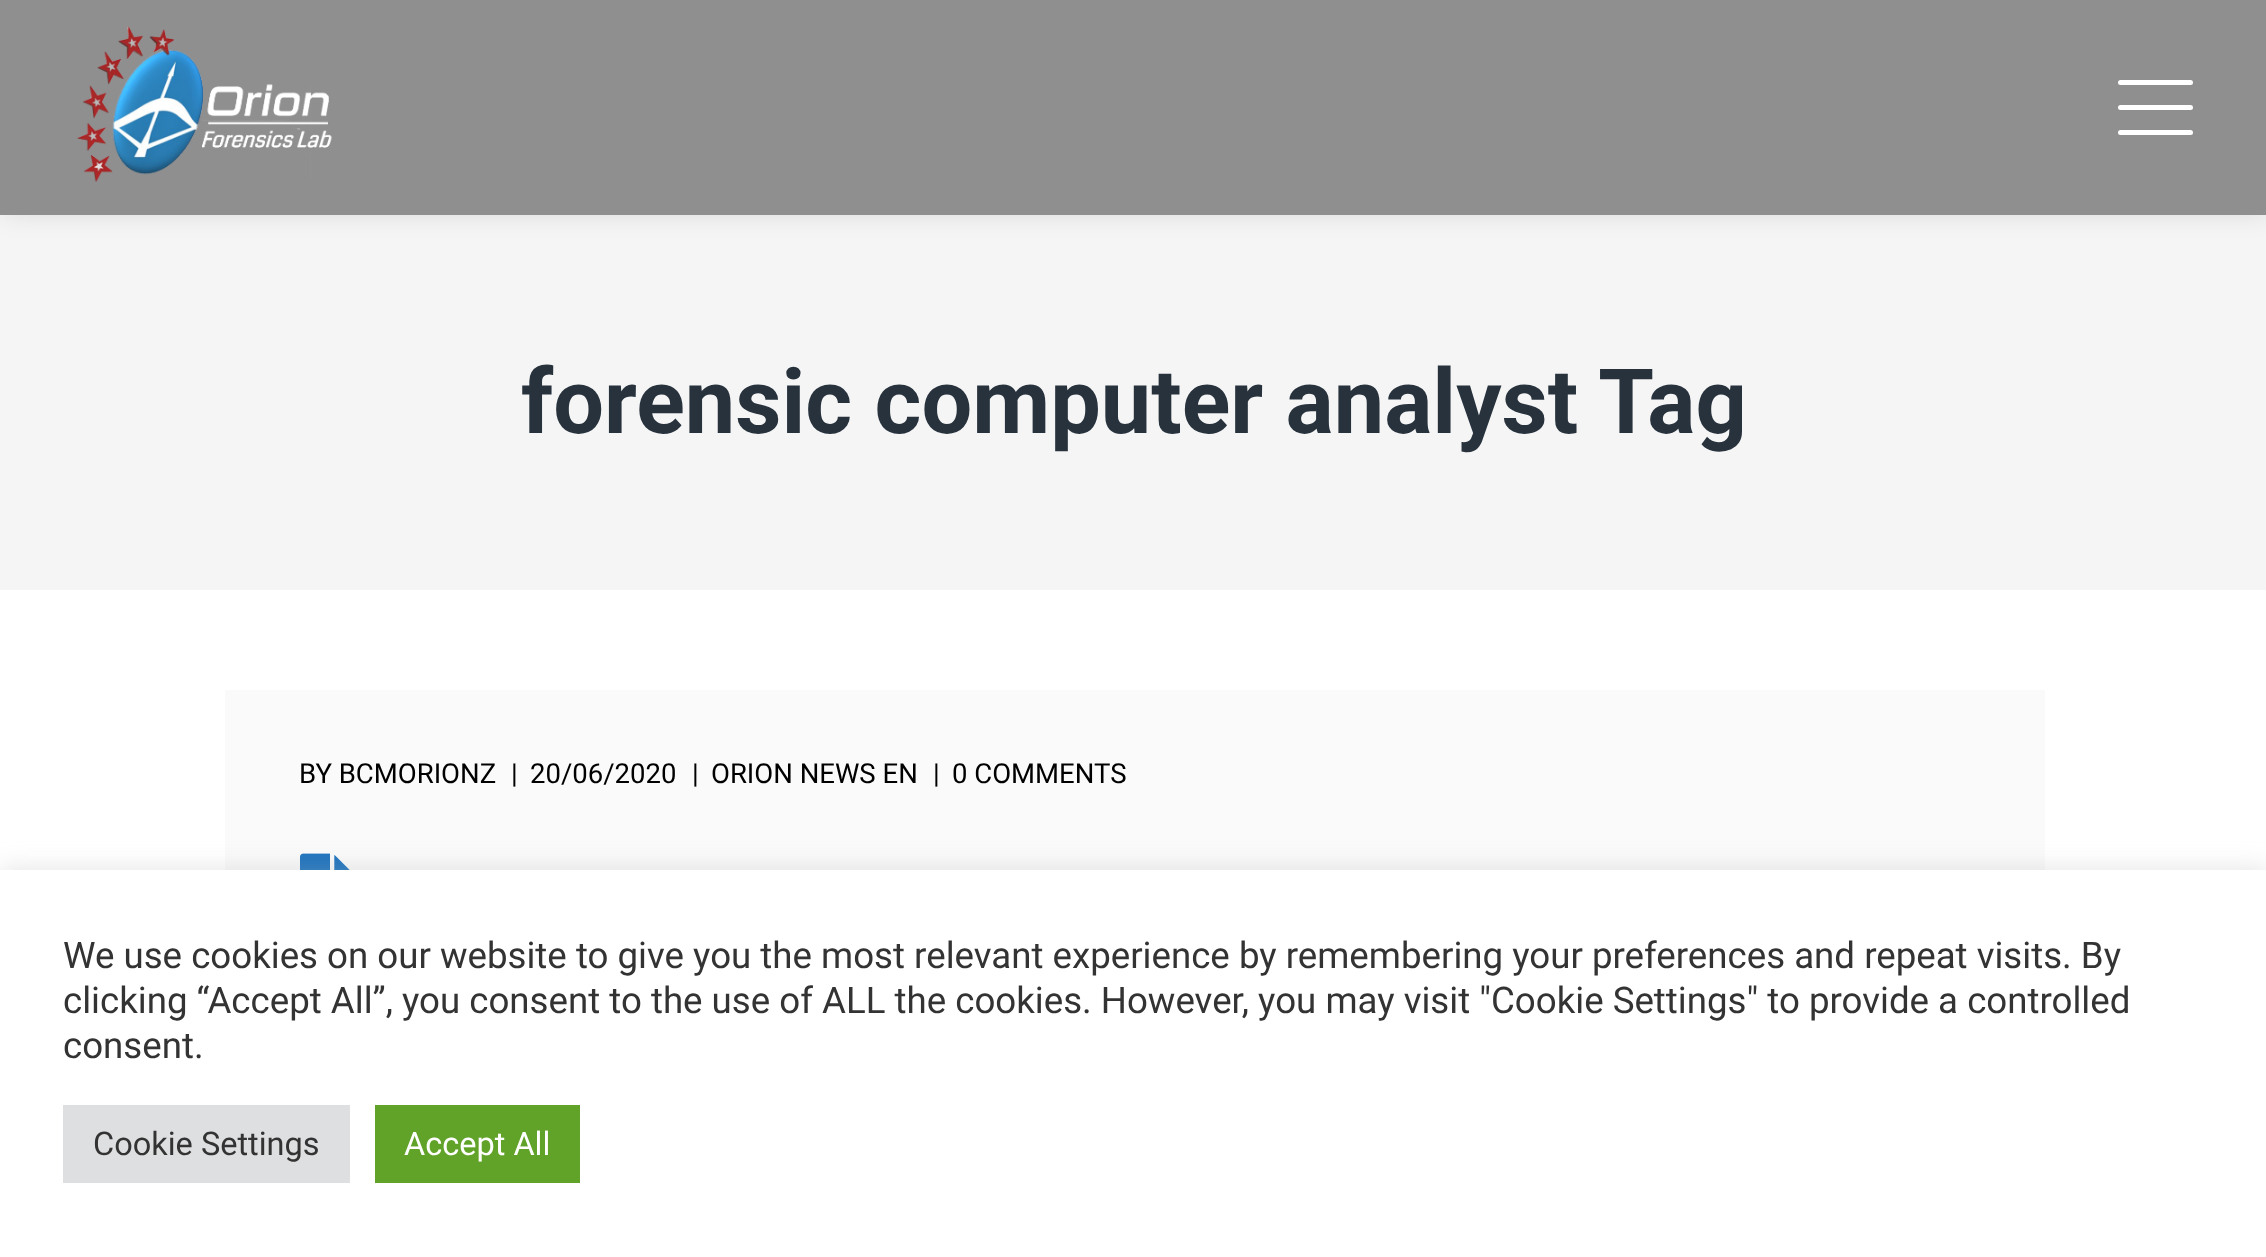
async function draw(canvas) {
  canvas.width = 2266
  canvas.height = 1257
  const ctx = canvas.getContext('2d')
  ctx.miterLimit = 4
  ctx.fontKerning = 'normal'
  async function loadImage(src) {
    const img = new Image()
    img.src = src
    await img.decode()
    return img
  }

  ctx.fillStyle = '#fff'
  ctx.fillRect(0, 0, 2266, 1257)
  ctx.fillStyle = '#f5f5f5'
  ctx.fillRect(0, 215, 2266, 375)
  ctx.fillStyle = '#0000001a'
  ctx.filter = 'blur(12.5px)'
  ctx.beginPath()
  ctx.rect(3, 0, 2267, 215)
  ctx.fill()
  ctx.filter = 'none'
  ctx.fillStyle = '#8f8f8f'
  ctx.fillRect(0, 0, 2266, 215)
  ctx.drawImage(await loadImage('image0.png'), 77, 26, 255, 156)
  ctx.fillStyle = '#fff'
  ctx.beginPath()
  ctx.roundRect(2118, 105, 75, 5, 2.5)
  ctx.fill()
  ctx.beginPath()
  ctx.roundRect(2118, 80, 75, 5, 2.5)
  ctx.fill()
  ctx.beginPath()
  ctx.roundRect(2118, 130, 75, 5, 2.5)
  ctx.fill()
  ctx.font = 'bold 90px Roboto'
  ctx.fillStyle = '#27323d'
  ctx.fillText('forensic computer analyst Tag', 521, 433)
  ctx.fillStyle = '#fafafa'
  ctx.fillRect(225, 690, 1820, 180)
  ctx.font = '27.5px Roboto'
  ctx.fillStyle = '#000'
  ctx.fillText('BY BCMORIONZ', 299, 783)
  ctx.fillText('|', 511, 783)
  ctx.fillText('20/06/2020', 530, 783)
  ctx.fillText('|', 692, 783)
  ctx.fillText('ORION NEWS EN', 711, 783)
  ctx.fillText('|', 933, 783)
  ctx.fillText('0 COMMENTS', 952, 783)
  ctx.drawImage(await loadImage('image1.png'), 300, 853, 50, 17)
  ctx.fillStyle = '#acabab4d'
  ctx.filter = 'blur(12.5px)'
  ctx.beginPath()
  ctx.rect(0, 868, 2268, 387)
  ctx.fill()
  ctx.filter = 'none'
  ctx.fillStyle = '#fff'
  ctx.fillRect(0, 870, 2266, 387)
  ctx.font = '36.67px Roboto'
  ctx.fillStyle = '#333'
  ctx.fillText('We use cookies on our website to give you the most relevant experience by remembering your preferences and repeat visits. By', 63, 968)
  ctx.fillText('clicking “Accept All”, you consent to the use of ALL the cookies. However, you may visit "Cookie Settings" to provide a controlled', 63, 1013)
  ctx.fillText('consent.', 63, 1058)
  ctx.fillStyle = '#dedfe0'
  ctx.fillRect(63, 1105, 287, 78)
  ctx.font = '32.5px Roboto'
  ctx.fillStyle = '#333'
  ctx.fillText('Cookie Settings', 93, 1155)
  ctx.fillStyle = '#61a229'
  ctx.fillRect(375, 1105, 205, 78)
  ctx.fillStyle = '#fff'
  ctx.fillText('Accept All', 404, 1155)
}

draw(document.querySelector('canvas'))
